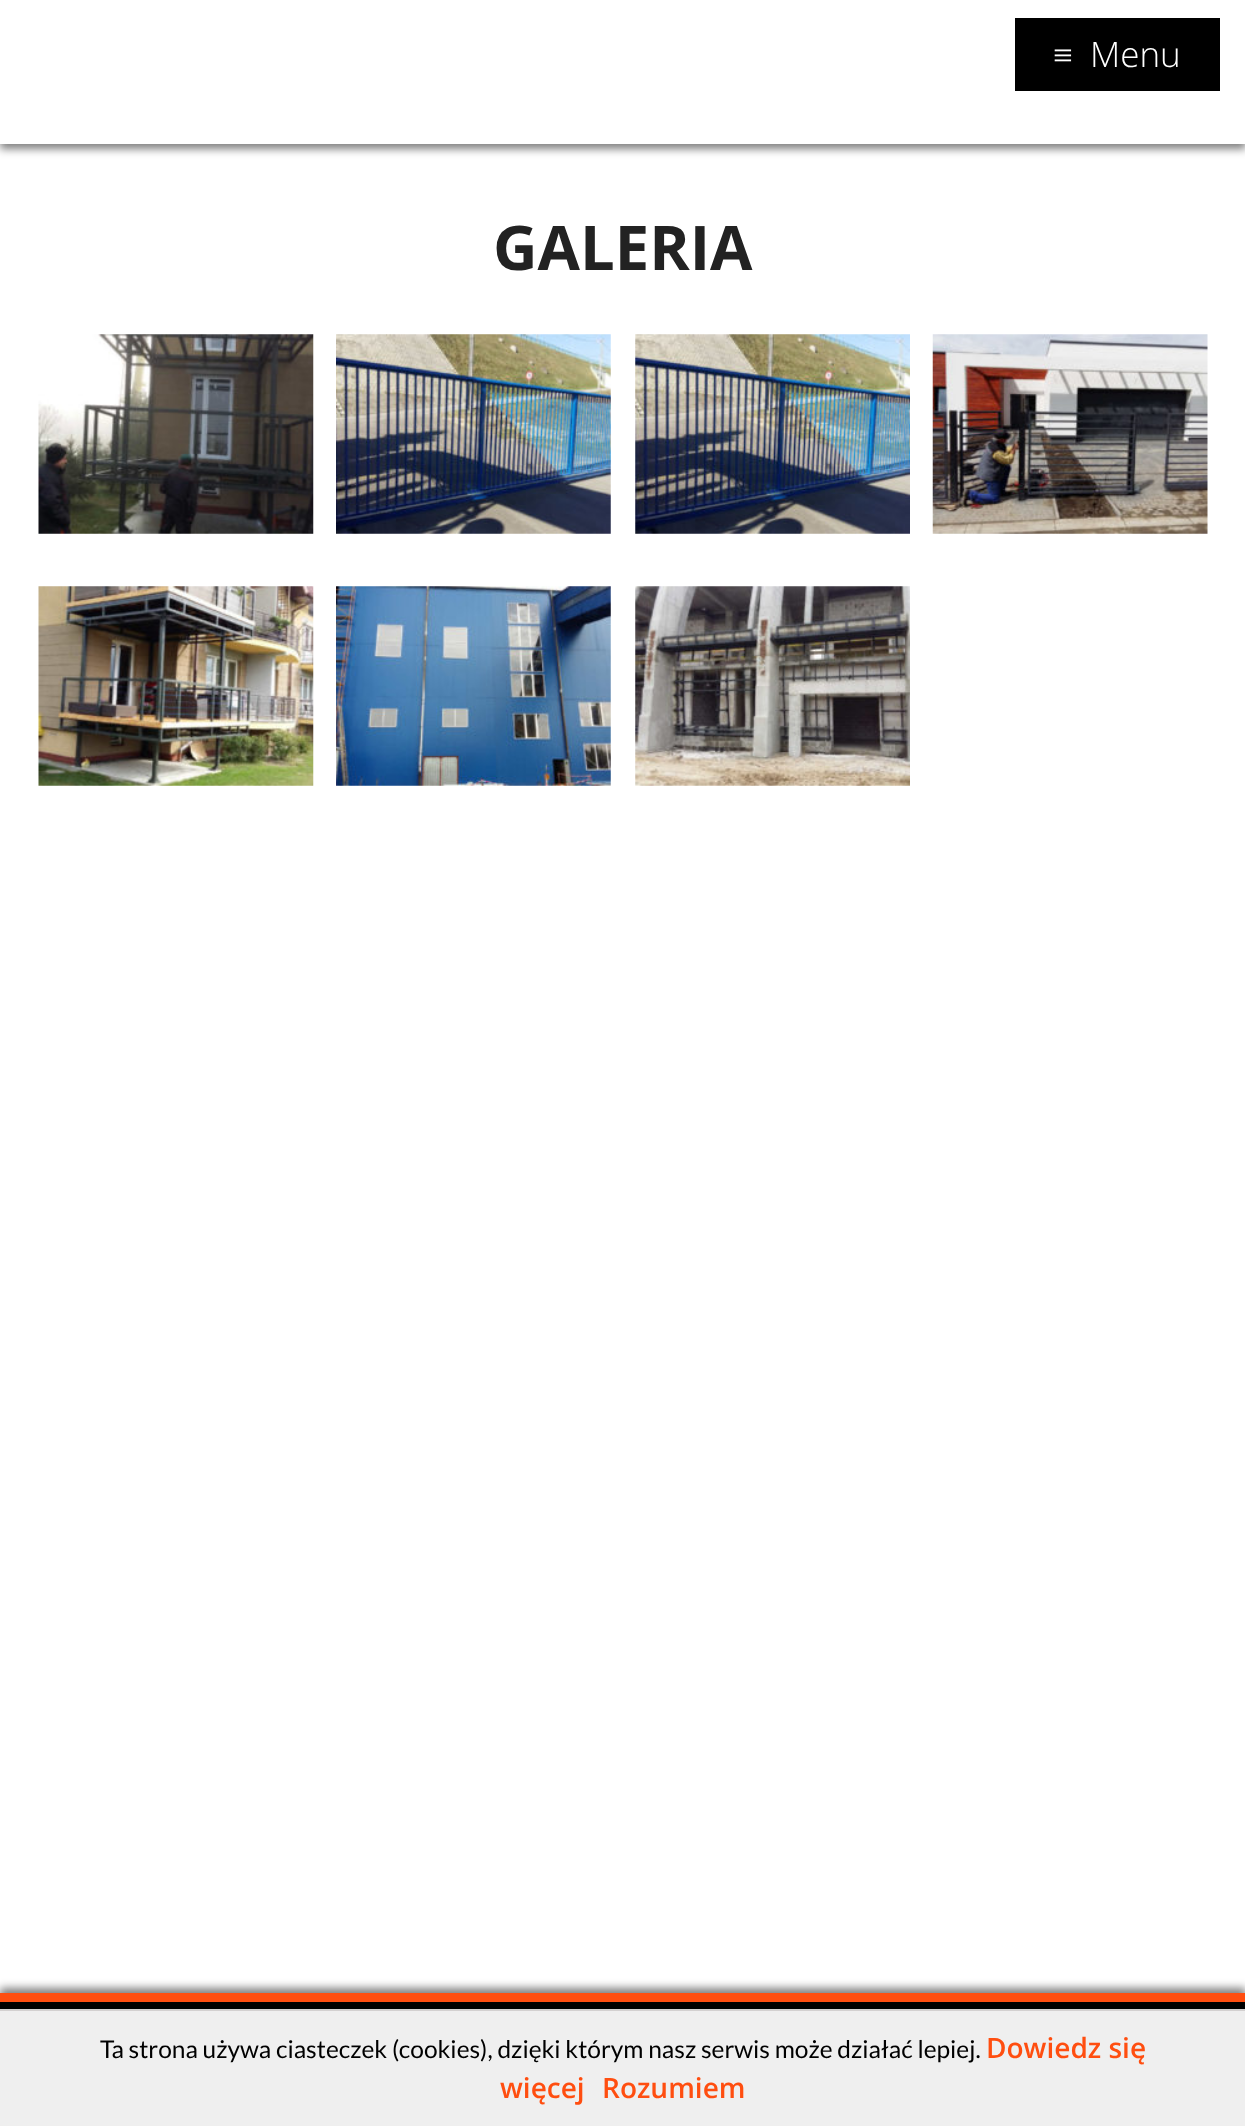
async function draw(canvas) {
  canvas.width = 1245
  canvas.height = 2126
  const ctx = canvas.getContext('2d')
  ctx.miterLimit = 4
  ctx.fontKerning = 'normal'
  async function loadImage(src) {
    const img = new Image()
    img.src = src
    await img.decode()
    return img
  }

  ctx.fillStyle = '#fff'
  ctx.fillRect(0, 0, 1245, 2126)
  ctx.save()
  ctx.beginPath()
  ctx.moveTo(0, 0)
  ctx.lineTo(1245, 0)
  ctx.lineTo(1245, 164)
  ctx.lineTo(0, 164)
  ctx.closePath()
  ctx.moveTo(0, 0)
  ctx.lineTo(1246, 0)
  ctx.lineTo(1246, 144)
  ctx.lineTo(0, 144)
  ctx.closePath()
  ctx.clip('evenodd')
  ctx.fillStyle = '#00000080'
  ctx.filter = 'blur(4.5px)'
  ctx.beginPath()
  ctx.rect(0, 5, 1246, 144)
  ctx.fill()
  ctx.filter = 'none'
  ctx.restore()
  ctx.fillStyle = '#000'
  ctx.fillRect(1015, 18, 205, 73)
  ctx.font = '35px Liberation Serif'
  ctx.fillStyle = '#fff'
  ctx.fillText('≡', 1053, 67)
  ctx.font = '300 35px Open Sans'
  ctx.fillText('Menu', 1090, 67)
  ctx.font = 'bold 61.5px Open Sans'
  ctx.fillStyle = '#222'
  ctx.fillText('GALERIA', 493, 270)
  ctx.drawImage(await loadImage('image0.png'), 38, 334, 276, 200)
  ctx.drawImage(await loadImage('image1.png'), 336, 334, 275, 200)
  ctx.drawImage(await loadImage('image2.png'), 635, 334, 275, 200)
  ctx.drawImage(await loadImage('image3.png'), 932, 334, 276, 200)
  ctx.drawImage(await loadImage('image4.png'), 38, 586, 276, 200)
  ctx.drawImage(await loadImage('image5.png'), 336, 586, 275, 200)
  ctx.drawImage(await loadImage('image6.png'), 635, 586, 275, 200)
  ctx.fillStyle = '#00000080'
  ctx.filter = 'blur(4.5px)'
  ctx.beginPath()
  ctx.rect(0, 1988, 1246, 133)
  ctx.fill()
  ctx.filter = 'none'
  ctx.fillStyle = '#000'
  ctx.fillRect(0, 2002, 1245, 7)
  ctx.fillStyle = '#ff4e10'
  ctx.fillRect(0, 1993, 1245, 9)
  ctx.fillStyle = '#efefef'
  ctx.fillRect(0, 2011, 1245, 115)
  ctx.fillStyle = '#d3d0d0'
  ctx.fillRect(0, 2009, 1245, 2)
  ctx.font = '24.5px Lato'
  ctx.fillStyle = '#000'
  ctx.fillText('Ta strona używa ciasteczek (cookies), dzięki którym nasz serwis może działać lepiej.', 100, 2058)
  ctx.font = '600 28px Open Sans'
  ctx.fillStyle = '#ff4e10'
  ctx.fillText('Dowiedz się', 986, 2058)
  ctx.fillText('więcej', 500, 2098)
  ctx.fillText('Rozumiem', 602, 2098)
}

draw(document.querySelector('canvas'))
